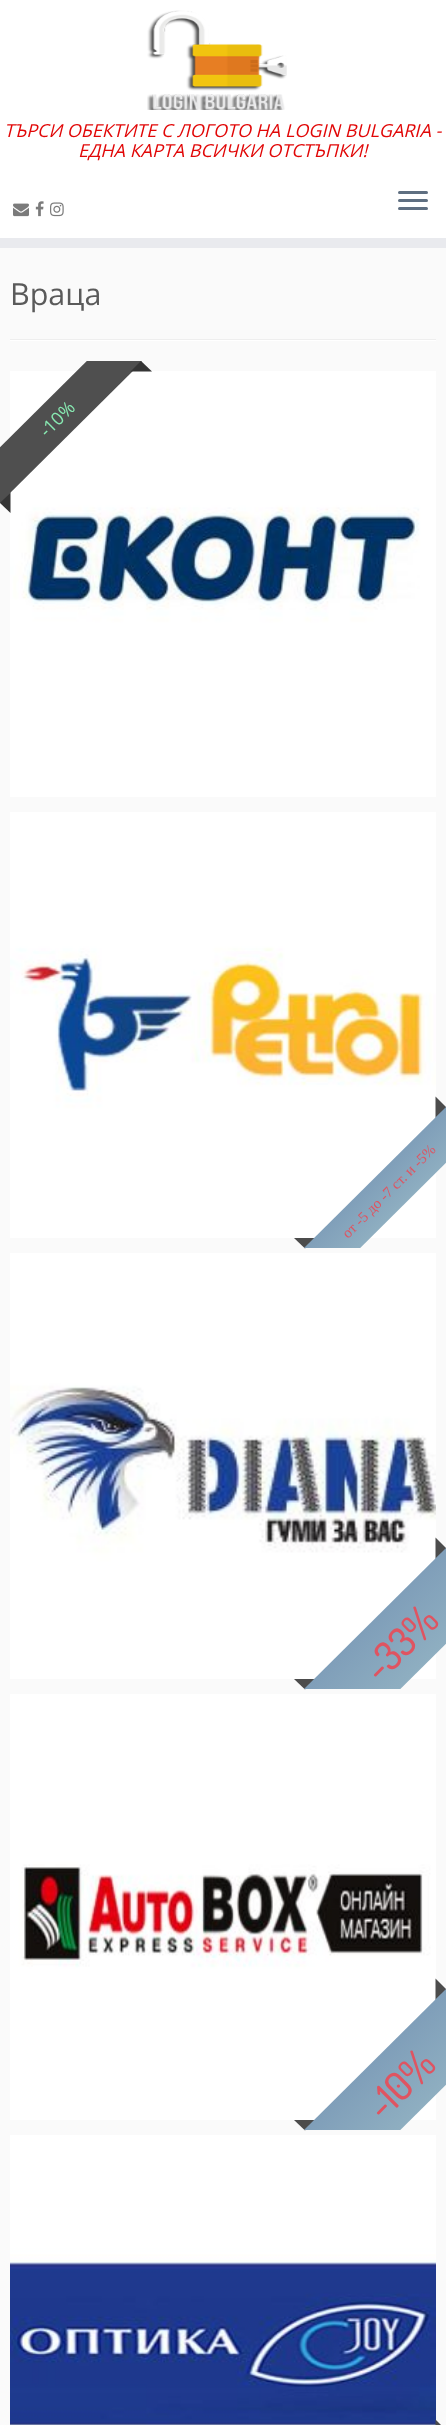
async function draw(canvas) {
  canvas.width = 446
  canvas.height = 2425
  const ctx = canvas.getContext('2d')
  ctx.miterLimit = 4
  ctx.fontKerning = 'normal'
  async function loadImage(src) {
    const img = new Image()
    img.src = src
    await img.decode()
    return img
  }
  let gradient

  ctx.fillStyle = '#fafafa'
  ctx.fillRect(0, 0, 446, 2425)
  ctx.fillStyle = '#fff'
  ctx.fillRect(0, 0, 446, 238)
  ctx.fillStyle = '#e9eaee'
  ctx.fillRect(0, 238, 446, 10)
  ctx.drawImage(await loadImage('image0.png'), 147, 10, 140, 100)
  ctx.font = 'italic 18px Open Sans'
  ctx.fillStyle = '#e10707'
  ctx.fillText('ТЪРСИ ОБЕКТИТЕ С ЛОГОТО НА LOGIN BULGARIA -', 4, 137)
  ctx.fillText('ЕДНА КАРТА ВСИЧКИ ОТСТЪПКИ!', 78, 157)
  ctx.drawImage(await loadImage('image1.png'), 13, 203, 16, 14)
  ctx.drawImage(await loadImage('image2.png'), 35, 201, 9, 16)
  ctx.drawImage(await loadImage('image3.png'), 50, 202, 14, 15)
  ctx.fillStyle = '#5f6f81'
  ctx.beginPath()
  ctx.roundRect(398, 191, 30, 3, 1.5)
  ctx.fill()
  ctx.beginPath()
  ctx.roundRect(398, 199, 30, 3, 1.5)
  ctx.fill()
  ctx.beginPath()
  ctx.roundRect(398, 207, 30, 3, 1.5)
  ctx.fill()
  ctx.font = '30.5px Open Sans'
  ctx.fillStyle = '#5a5a5a'
  ctx.fillText('Враца', 10, 305)
  ctx.fillStyle = '#eee'
  ctx.fillRect(10, 339, 426, 1)
  ctx.fillStyle = '#fff'
  ctx.fillRect(10, 340, 426, 1)
  ctx.drawImage(await loadImage('image4.png'), 10, 371, 426, 426)
  ctx.fillStyle = '#353535'
  ctx.beginPath()
  ctx.moveTo(-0.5, 502.5)
  ctx.lineTo(10.5, 492)
  ctx.lineTo(10.5, 513)
  ctx.closePath()
  ctx.fill()
  ctx.save()
  ctx.beginPath()
  ctx.rect(0, 361, 446, 446)
  ctx.clip()
  ctx.fillStyle = '#4f4f4f'
  ctx.beginPath()
  ctx.moveTo(-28, 475)
  ctx.lineTo(114, 334)
  ctx.lineTo(142, 362)
  ctx.lineTo(0, 503)
  ctx.closePath()
  ctx.fill()
  ctx.restore()
  ctx.beginPath()
  ctx.moveTo(130.5, 371.5)
  ctx.lineTo(141, 361)
  ctx.lineTo(152, 371.5)
  ctx.closePath()
  ctx.fill()
  ctx.font = '18px Open Sans'
  ctx.fillStyle = '#88eab2'
  ctx.save()
  ctx.translate(47, 438)
  ctx.rotate(-45 * Math.PI / 180)
  ctx.fillText('-10%', 0, 0)
  ctx.restore()
  ctx.drawImage(await loadImage('image5.png'), 10, 812, 426, 426)
  ctx.fillStyle = '#4c4c4c'
  ctx.beginPath()
  ctx.moveTo(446.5, 1107.5)
  ctx.lineTo(435.5, 1118)
  ctx.lineTo(435.5, 1096.5)
  ctx.closePath()
  ctx.fill()
  ctx.beginPath()
  ctx.moveTo(315.5, 1238)
  ctx.lineTo(305, 1248.5)
  ctx.lineTo(294, 1238)
  ctx.closePath()
  ctx.fill()
  ctx.save()
  ctx.beginPath()
  ctx.rect(0, 802, 446, 446)
  ctx.clip()
  gradient = ctx.createLinearGradient(404, 1207, 374, 1176)
  gradient.addColorStop(0, '#8fafc1')
  gradient.addColorStop(1, '#7f9eb9')
  ctx.fillStyle = gradient
  ctx.beginPath()
  ctx.moveTo(304, 1248)
  ctx.lineTo(446, 1107)
  ctx.lineTo(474, 1135)
  ctx.lineTo(332, 1276)
  ctx.closePath()
  ctx.fill()
  ctx.restore()
  ctx.font = '15px Liberation Serif'
  ctx.fillStyle = '#df5461'
  ctx.save()
  ctx.translate(348, 1239)
  ctx.rotate(-45 * Math.PI / 180)
  ctx.fillText('от -5 до -7 ст. и -5%', 0, 0)
  ctx.restore()
  ctx.drawImage(await loadImage('image6.png'), 10, 1253, 426, 426)
  ctx.fillStyle = '#4c4c4c'
  ctx.beginPath()
  ctx.moveTo(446.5, 1548.5)
  ctx.lineTo(435.5, 1559)
  ctx.lineTo(435.5, 1537.5)
  ctx.closePath()
  ctx.fill()
  ctx.beginPath()
  ctx.moveTo(315.5, 1679)
  ctx.lineTo(305, 1689.5)
  ctx.lineTo(294, 1679)
  ctx.closePath()
  ctx.fill()
  ctx.save()
  ctx.beginPath()
  ctx.rect(0, 1243, 446, 446)
  ctx.clip()
  gradient = ctx.createLinearGradient(424, 1668, 374, 1617)
  gradient.addColorStop(0, '#8fafc1')
  gradient.addColorStop(1, '#7f9eb9')
  ctx.fillStyle = gradient
  ctx.beginPath()
  ctx.moveTo(304, 1689)
  ctx.lineTo(446, 1548)
  ctx.lineTo(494, 1596)
  ctx.lineTo(352, 1737)
  ctx.closePath()
  ctx.fill()
  ctx.restore()
  ctx.font = '500 40px Dosis'
  ctx.fillStyle = '#df5461'
  ctx.save()
  ctx.translate(380, 1684)
  ctx.rotate(-45 * Math.PI / 180)
  ctx.fillText('-33%', 0, 0)
  ctx.restore()
  ctx.drawImage(await loadImage('image7.png'), 10, 1694, 426, 426)
  ctx.fillStyle = '#4c4c4c'
  ctx.beginPath()
  ctx.moveTo(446.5, 1989.5)
  ctx.lineTo(435.5, 2000)
  ctx.lineTo(435.5, 1978.5)
  ctx.closePath()
  ctx.fill()
  ctx.beginPath()
  ctx.moveTo(315.5, 2120)
  ctx.lineTo(305, 2130.5)
  ctx.lineTo(294, 2120)
  ctx.closePath()
  ctx.fill()
  ctx.save()
  ctx.beginPath()
  ctx.rect(0, 1684, 446, 446)
  ctx.clip()
  gradient = ctx.createLinearGradient(424, 2109, 374, 2058)
  gradient.addColorStop(0, '#8fafc1')
  gradient.addColorStop(1, '#7f9eb9')
  ctx.fillStyle = gradient
  ctx.beginPath()
  ctx.moveTo(304, 2130)
  ctx.lineTo(446, 1989)
  ctx.lineTo(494, 2037)
  ctx.lineTo(352, 2178)
  ctx.closePath()
  ctx.fill()
  ctx.restore()
  ctx.fillStyle = '#df5461'
  ctx.save()
  ctx.translate(383, 2122)
  ctx.rotate(-45 * Math.PI / 180)
  ctx.fillText('-10%', 0, 0)
  ctx.restore()
  ctx.drawImage(await loadImage('image8.png'), 10, 2135, 426, 290)
  ctx.fillStyle = '#4c4c4c'
  ctx.beginPath()
  ctx.moveTo(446.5, 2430.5)
  ctx.lineTo(435.5, 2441)
  ctx.lineTo(435.5, 2419.5)
  ctx.closePath()
  ctx.fill()
}

draw(document.querySelector('canvas'))
